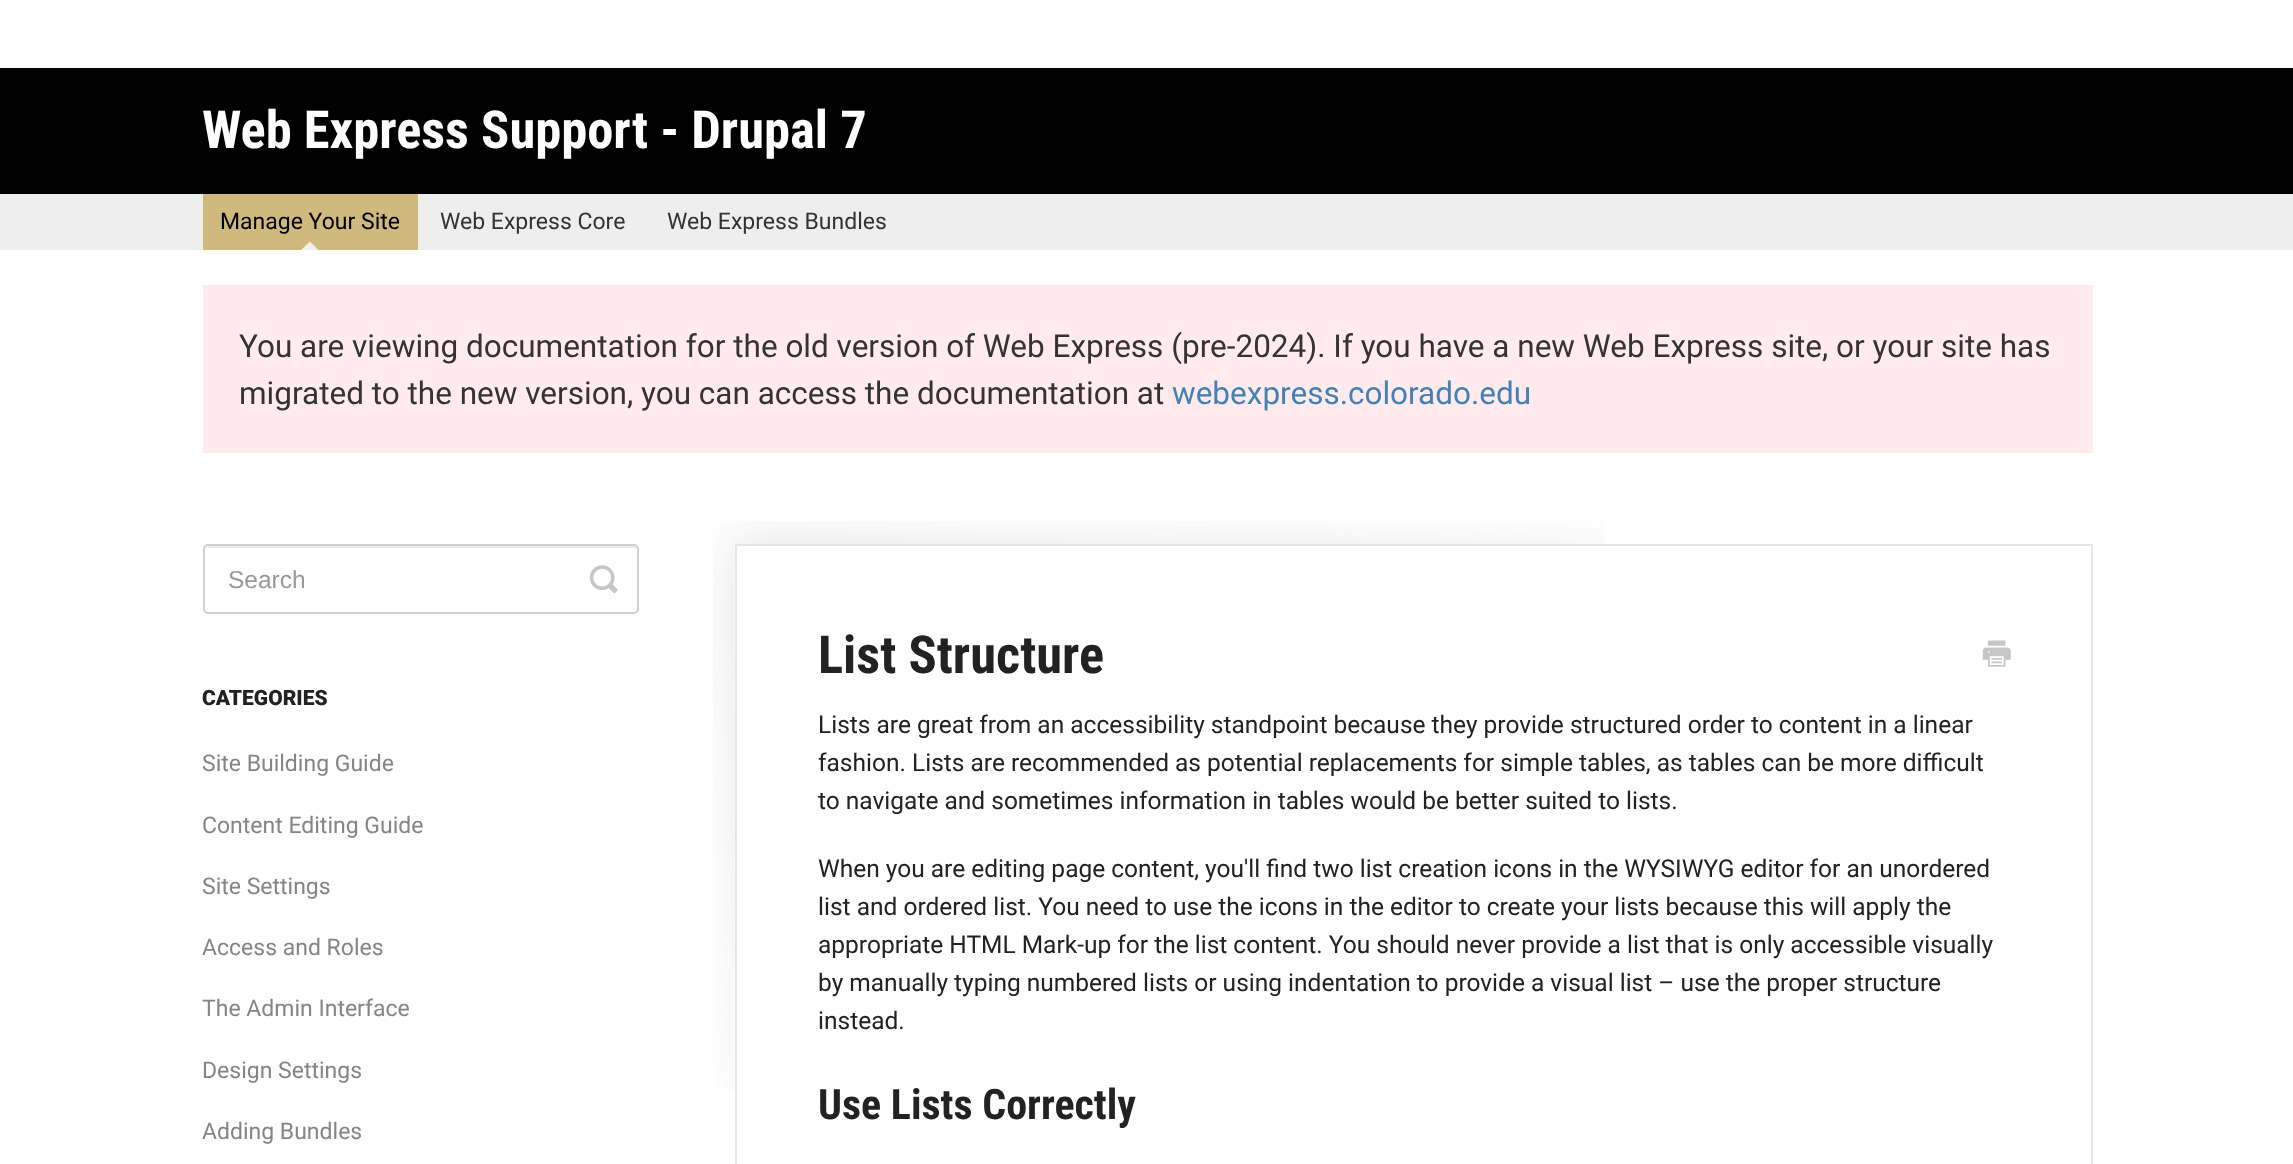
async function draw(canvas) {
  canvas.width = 2293
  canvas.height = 1164
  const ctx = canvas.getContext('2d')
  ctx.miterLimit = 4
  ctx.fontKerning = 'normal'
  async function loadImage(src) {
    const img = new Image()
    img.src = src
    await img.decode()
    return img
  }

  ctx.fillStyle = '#fff'
  ctx.fillRect(0, 0, 2293, 1164)
  ctx.fillStyle = '#000'
  ctx.fillRect(0, 68, 2293, 126)
  ctx.font = 'bold 52.5px Roboto Condensed'
  ctx.fillStyle = '#fff'
  ctx.fillText('Web Express Support - Drupal 7', 202, 148)
  ctx.fillStyle = '#eee'
  ctx.fillRect(0, 194, 2293, 56)
  ctx.fillStyle = '#cfb97d'
  ctx.fillRect(203, 194, 215, 56)
  ctx.font = '23px Roboto'
  ctx.fillStyle = '#000'
  ctx.fillText('Manage Your Site', 220, 229)
  ctx.fillStyle = '#f0f0f0'
  ctx.beginPath()
  ctx.moveTo(318.5, 250)
  ctx.lineTo(301, 250)
  ctx.lineTo(310, 241.5)
  ctx.closePath()
  ctx.fill()
  ctx.fillStyle = '#333'
  ctx.fillText('Web Express Core', 440, 229)
  ctx.fillText('Web Express Bundles', 667, 229)
  ctx.fillStyle = '#ffebee'
  ctx.fillRect(203, 285, 1890, 168)
  ctx.font = '31.5px Roboto'
  ctx.fillStyle = '#333'
  ctx.fillText('You are viewing documentation for the old version of Web Express (pre-2024). If you have a new Web Express site, or your site has', 239, 357)
  ctx.fillText('migrated to the new version, you can access the documentation at', 239, 404)
  ctx.fillStyle = '#4381b5'
  ctx.fillText('webexpress.colorado.edu', 1172, 404)
  ctx.fillStyle = '#ececec'
  ctx.beginPath()
  ctx.moveTo(208, 548)
  ctx.lineTo(634, 548)
  ctx.bezierCurveTo(635, 548, 637, 549, 637, 551)
  ctx.bezierCurveTo(637, 548, 636, 546, 633, 546)
  ctx.lineTo(209, 546)
  ctx.bezierCurveTo(208, 546, 206, 547, 206, 548)
  ctx.lineTo(205, 551)
  ctx.bezierCurveTo(205, 549, 206, 548, 208, 548)
  ctx.closePath()
  ctx.fill()
  ctx.beginPath()
  ctx.roundRect(204, 545, 434, 68, 4)
  ctx.strokeStyle = '#d0d0d0'
  ctx.lineWidth = 2
  ctx.stroke()
  ctx.font = '24.5px Liberation Sans'
  ctx.fillStyle = '#999'
  ctx.fillText('Search', 228, 588)
  ctx.drawImage(await loadImage('image0.png'), 589, 565, 29, 29)
  ctx.font = '900 21px Roboto'
  ctx.fillStyle = '#222'
  ctx.fillText('CATEGORIES', 202, 705)
  ctx.font = '23px Roboto'
  ctx.fillStyle = '#858585'
  ctx.fillText('Site Building Guide', 202, 771)
  ctx.fillText('Content Editing Guide', 202, 833)
  ctx.fillText('Site Settings', 202, 894)
  ctx.fillText('Access and Roles', 202, 955)
  ctx.fillText('The Admin Interface', 202, 1016)
  ctx.fillText('Design Settings', 202, 1078)
  ctx.fillText('Adding Bundles', 202, 1139)
  ctx.drawImage(await loadImage('image1.png'), 713, 521, 891, 568)
  ctx.strokeStyle = '#e9e5e5'
  ctx.strokeRect(736, 545, 1356, 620)
  ctx.font = 'bold 52.5px Roboto Condensed'
  ctx.fillStyle = '#222'
  ctx.fillText('List Structure', 818, 673)
  ctx.drawImage(await loadImage('image2.png'), 1982, 640, 29, 27)
  ctx.font = '24.5px Roboto'
  ctx.fillText('Lists are great from an accessibility standpoint because they provide structured order to content in a linear', 818, 733)
  ctx.fillText('fashion. Lists are recommended as potential replacements for simple tables, as tables can be more difficult', 818, 771)
  ctx.fillText('to navigate and sometimes information in tables would be better suited to lists.', 818, 809)
  ctx.fillText('When you are editing page content, you\'ll find two list creation icons in the WYSIWYG editor for an unordered', 818, 877)
  ctx.fillText('list and ordered list. You need to use the icons in the editor to create your lists because this will apply the', 818, 915)
  ctx.fillText('appropriate HTML Mark-up for the list content. You should never provide a list that is only accessible visually', 818, 953)
  ctx.fillText('by manually typing numbered lists or using indentation to provide a visual list – use the proper structure', 818, 991)
  ctx.fillText('instead.', 818, 1029)
  ctx.font = 'bold 42px Roboto Condensed'
  ctx.fillText('Use Lists Correctly', 818, 1119)
}

draw(document.querySelector('canvas'))
